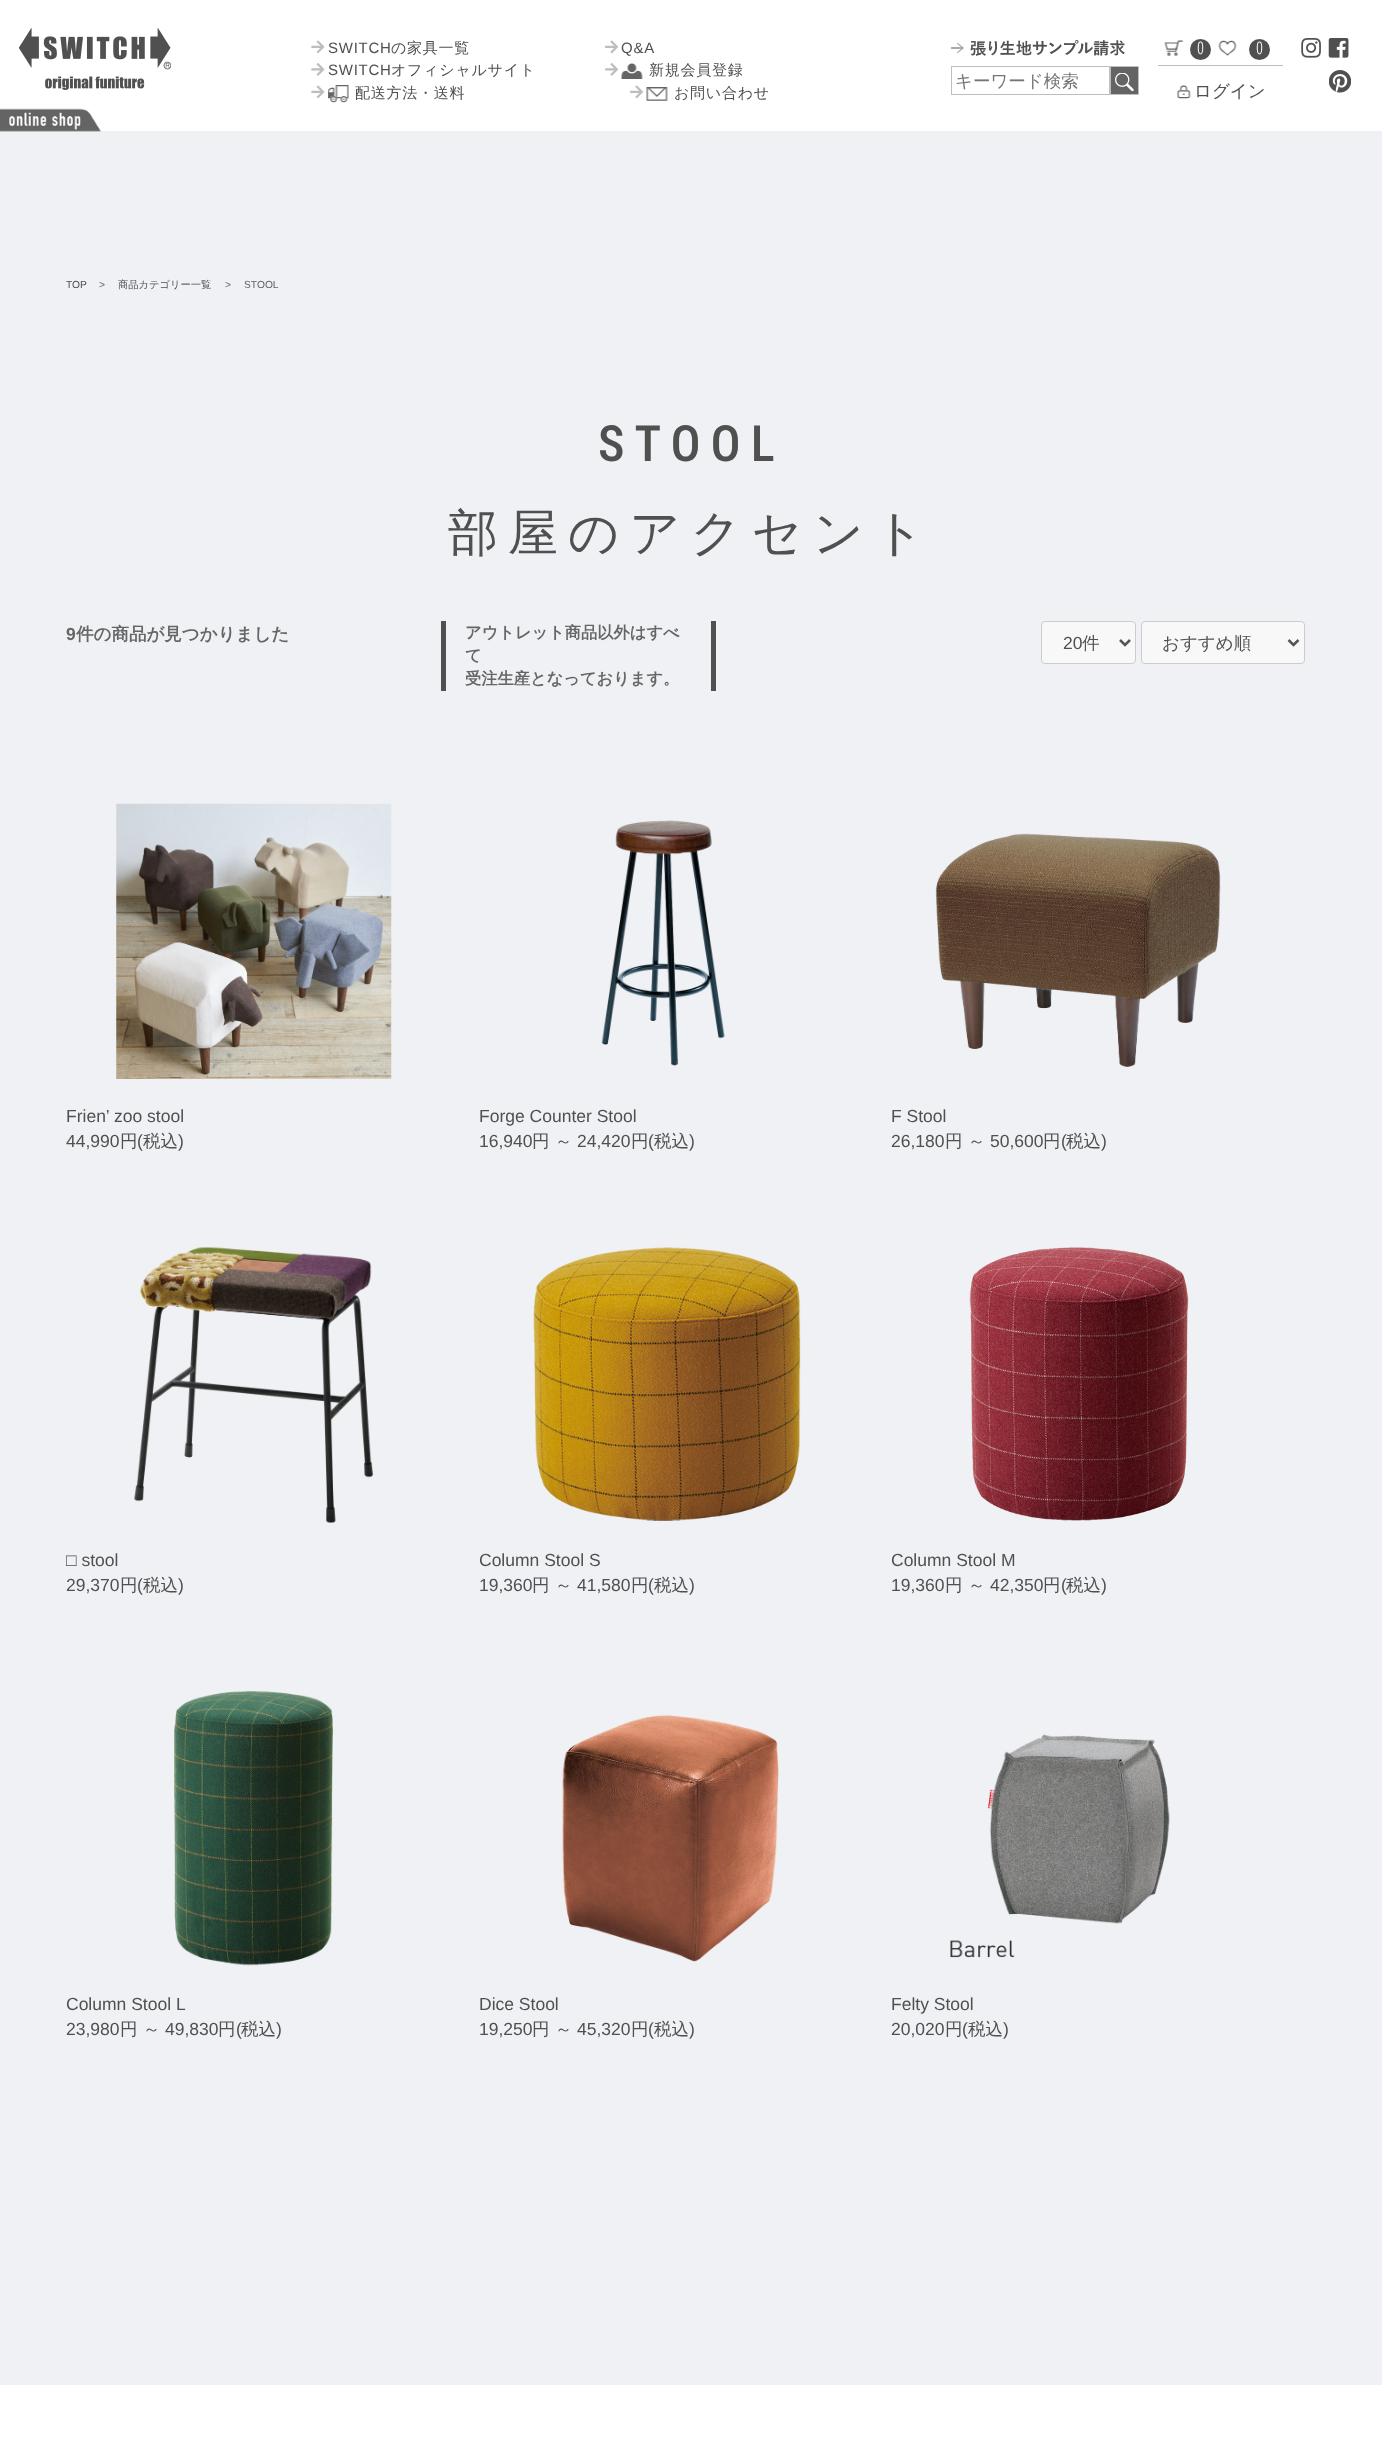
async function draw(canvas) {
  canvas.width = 1382
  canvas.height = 2438
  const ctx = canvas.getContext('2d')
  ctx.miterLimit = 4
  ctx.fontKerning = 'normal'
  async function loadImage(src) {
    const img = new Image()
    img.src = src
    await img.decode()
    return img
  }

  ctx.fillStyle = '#eff1f4'
  ctx.fillRect(0, 0, 1382, 2438)
  ctx.fillStyle = '#fff'
  ctx.fillRect(0, 0, 1382, 131)
  ctx.drawImage(await loadImage('image0.png'), 19, 28, 152, 62)
  ctx.drawImage(await loadImage('image1.png'), 311, 40, 14, 14)
  ctx.letterSpacing = '0.75px'
  ctx.font = '15px Liberation Sans'
  ctx.fillStyle = '#505050'
  ctx.fillText('SWITCH', 328, 53)
  ctx.font = '500 15px WenQuanYi Zen Hei'
  ctx.fillText('の家具一覧', 391, 53)
  ctx.drawImage(await loadImage('image2.png'), 605, 40, 13, 14)
  ctx.font = '15px Liberation Sans'
  ctx.fillText('Q&A', 621, 53)
  ctx.drawImage(await loadImage('image3.png'), 311, 63, 14, 13)
  ctx.fillText('SWITCH', 328, 75)
  ctx.font = '500 15px WenQuanYi Zen Hei'
  ctx.fillText('オフィシャルサイト', 391, 75)
  ctx.drawImage(await loadImage('image4.png'), 605, 63, 13, 13)
  ctx.drawImage(await loadImage('image5.png'), 621, 63, 22, 16)
  ctx.fillText('新規会員登録', 649, 75)
  ctx.drawImage(await loadImage('image1.png'), 311, 85, 14, 14)
  ctx.drawImage(await loadImage('image6.png'), 328, 85, 21, 18)
  ctx.fillText('配送方法・送料', 355, 98)
  ctx.drawImage(await loadImage('image2.png'), 630, 85, 13, 14)
  ctx.drawImage(await loadImage('image7.png'), 646, 87, 22, 14)
  ctx.fillText('お問い合わせ', 674, 98)
  ctx.drawImage(await loadImage('image8.png'), 951, 40, 174, 16)
  ctx.strokeStyle = '#bebebe'
  ctx.strokeRect(951.5, 66.5, 158, 28)
  ctx.letterSpacing = '0px'
  ctx.font = '500 17.5px WenQuanYi Zen Hei'
  ctx.fillStyle = '#757575'
  ctx.fillText('キーワード検索', 955, 87)
  ctx.fillStyle = '#646464'
  ctx.beginPath()
  ctx.rect(1110.5, 66.5, 28, 28)
  ctx.fill()
  ctx.stroke()
  ctx.drawImage(await loadImage('image9.png'), 1115, 73, 19, 18)
  ctx.fillStyle = '#bebebe'
  ctx.fillRect(1158, 65, 125, 1)
  ctx.drawImage(await loadImage('image10.png'), 1164, 40, 20, 16)
  ctx.fillStyle = '#505050'
  ctx.beginPath()
  ctx.arc(1200.5, 49.5, 10.5, 0, 2 * Math.PI)
  ctx.fill()
  ctx.font = '300 17.5px BenchNine'
  ctx.fillStyle = '#fff'
  ctx.fillText('0', 1197, 54)
  ctx.drawImage(await loadImage('image11.png'), 1218, 40, 19, 16)
  ctx.fillStyle = '#505050'
  ctx.beginPath()
  ctx.arc(1259.5, 49.5, 10.5, 0, 2 * Math.PI)
  ctx.fill()
  ctx.fillStyle = '#fff'
  ctx.fillText('0', 1256, 54)
  ctx.drawImage(await loadImage('image12.png'), 1177, 85, 14, 14)
  ctx.font = '500 17.5px WenQuanYi Zen Hei'
  ctx.fillStyle = '#505050'
  ctx.fillText('ログイン', 1194, 97)
  ctx.drawImage(await loadImage('image13.png'), 1301, 38, 20, 20)
  ctx.drawImage(await loadImage('image14.png'), 1328, 38, 21, 20)
  ctx.drawImage(await loadImage('image15.png'), 1329, 70, 22, 23)
  ctx.drawImage(await loadImage('image16.png'), 0, 108, 101, 24)
  ctx.font = '10.25px Liberation Sans'
  ctx.fillText('TOP', 66, 288)
  ctx.fillStyle = '#666'
  ctx.fillText('>', 99, 288)
  ctx.font = '500 10.25px WenQuanYi Zen Hei'
  ctx.fillStyle = '#505050'
  ctx.fillText('商品カテゴリー一覧', 118, 288)
  ctx.font = '10.25px Liberation Sans'
  ctx.fillStyle = '#666'
  ctx.fillText('>', 225, 288)
  ctx.fillText('STOOL', 244, 288)
  ctx.letterSpacing = '10px'
  ctx.font = '500 50px Roboto Condensed'
  ctx.fillStyle = '#505050'
  ctx.fillText('STOOL', 598, 461)
  ctx.font = '500 50px WenQuanYi Zen Hei'
  ctx.fillText('部屋のアクセント', 448, 550)
  ctx.letterSpacing = '0px'
  ctx.font = 'bold 17.5px Liberation Sans'
  ctx.fillStyle = '#666'
  ctx.fillText('9', 66, 640)
  ctx.font = 'bold 17.5px WenQuanYi Zen Hei'
  ctx.fillText('件の商品が見つかりました', 76, 640)
  ctx.fillStyle = '#505050'
  ctx.fillRect(711, 621, 5, 70)
  ctx.fillRect(441, 621, 5, 70)
  ctx.font = 'bold 16.25px WenQuanYi Zen Hei'
  ctx.fillStyle = '#666'
  ctx.fillText('アウトレット商品以外はすべ', 465, 638)
  ctx.fillText('て', 465, 661)
  ctx.fillText('受注生産となっております。', 465, 684)
  ctx.fillStyle = '#f8f8f8'
  ctx.beginPath()
  ctx.roundRect(1041.5, 621.5, 94, 42, 3.5)
  ctx.fill()
  ctx.strokeStyle = '#ccc'
  ctx.stroke()
  ctx.beginPath()
  ctx.moveTo(1120, 640)
  ctx.lineTo(1125, 645)
  ctx.lineTo(1130, 640)
  ctx.strokeStyle = '#555'
  ctx.lineWidth = 2.5
  ctx.stroke()
  ctx.font = '17.5px Liberation Sans'
  ctx.fillStyle = '#505050'
  ctx.fillText('20', 1063, 649)
  ctx.font = '500 17.5px WenQuanYi Zen Hei'
  ctx.fillText('件', 1082, 649)
  ctx.fillStyle = '#f8f8f8'
  ctx.beginPath()
  ctx.roundRect(1141.5, 621.5, 163, 42, 3.5)
  ctx.fill()
  ctx.strokeStyle = '#ccc'
  ctx.lineWidth = 1
  ctx.stroke()
  ctx.beginPath()
  ctx.moveTo(1288.5, 640)
  ctx.lineTo(1293.5, 645)
  ctx.lineTo(1298.5, 640)
  ctx.strokeStyle = '#555'
  ctx.lineWidth = 2.5
  ctx.stroke()
  ctx.fillStyle = '#505050'
  ctx.fillText('おすすめ順', 1162, 649)
  ctx.drawImage(await loadImage('image17.png'), 116, 803, 276, 276)
  ctx.font = '17.5px Liberation Sans'
  ctx.fillText('Frien’ zoo stool', 66, 1122)
  ctx.fillText('44,990', 66, 1147)
  ctx.font = '500 17.5px WenQuanYi Zen Hei'
  ctx.fillText('円', 120, 1147)
  ctx.font = '17.5px Liberation Sans'
  ctx.fillText('(', 137, 1147)
  ctx.font = '500 17.5px WenQuanYi Zen Hei'
  ctx.fillText('税込', 143, 1147)
  ctx.font = '17.5px Liberation Sans'
  ctx.fillText(')', 178, 1147)
  ctx.drawImage(await loadImage('image18.png'), 601, 820, 124, 246)
  ctx.fillText('Forge Counter Stool', 479, 1122)
  ctx.fillText('16,940', 479, 1147)
  ctx.font = '500 17.5px WenQuanYi Zen Hei'
  ctx.fillText('円 ～', 532, 1147)
  ctx.font = '17.5px Liberation Sans'
  ctx.fillText('24,420', 577, 1147)
  ctx.font = '500 17.5px WenQuanYi Zen Hei'
  ctx.fillText('円', 631, 1147)
  ctx.font = '17.5px Liberation Sans'
  ctx.fillText('(', 648, 1147)
  ctx.font = '500 17.5px WenQuanYi Zen Hei'
  ctx.fillText('税込', 654, 1147)
  ctx.font = '17.5px Liberation Sans'
  ctx.fillText(')', 689, 1147)
  ctx.drawImage(await loadImage('image19.png'), 935, 833, 286, 234)
  ctx.fillText('F Stool', 891, 1122)
  ctx.fillText('26,180', 891, 1147)
  ctx.font = '500 17.5px WenQuanYi Zen Hei'
  ctx.fillText('円 ～', 945, 1147)
  ctx.font = '17.5px Liberation Sans'
  ctx.fillText('50,600', 990, 1147)
  ctx.font = '500 17.5px WenQuanYi Zen Hei'
  ctx.fillText('円', 1043, 1147)
  ctx.font = '17.5px Liberation Sans'
  ctx.fillText('(', 1061, 1147)
  ctx.font = '500 17.5px WenQuanYi Zen Hei'
  ctx.fillText('税込', 1066, 1147)
  ctx.font = '17.5px Liberation Sans'
  ctx.fillText(')', 1101, 1147)
  ctx.drawImage(await loadImage('image20.png'), 134, 1247, 239, 276)
  ctx.fillText('□ stool', 66, 1566)
  ctx.fillText('29,370', 66, 1591)
  ctx.font = '500 17.5px WenQuanYi Zen Hei'
  ctx.fillText('円', 120, 1591)
  ctx.font = '17.5px Liberation Sans'
  ctx.fillText('(', 137, 1591)
  ctx.font = '500 17.5px WenQuanYi Zen Hei'
  ctx.fillText('税込', 143, 1591)
  ctx.font = '17.5px Liberation Sans'
  ctx.fillText(')', 178, 1591)
  ctx.drawImage(await loadImage('image21.png'), 533, 1247, 268, 274)
  ctx.fillText('Column Stool S', 479, 1566)
  ctx.fillText('19,360', 479, 1591)
  ctx.font = '500 17.5px WenQuanYi Zen Hei'
  ctx.fillText('円 ～', 532, 1591)
  ctx.font = '17.5px Liberation Sans'
  ctx.fillText('41,580', 577, 1591)
  ctx.font = '500 17.5px WenQuanYi Zen Hei'
  ctx.fillText('円', 631, 1591)
  ctx.font = '17.5px Liberation Sans'
  ctx.fillText('(', 648, 1591)
  ctx.font = '500 17.5px WenQuanYi Zen Hei'
  ctx.fillText('税込', 654, 1591)
  ctx.font = '17.5px Liberation Sans'
  ctx.fillText(')', 689, 1591)
  ctx.drawImage(await loadImage('image22.png'), 969, 1247, 220, 274)
  ctx.fillText('Column Stool M', 891, 1566)
  ctx.fillText('19,360', 891, 1591)
  ctx.font = '500 17.5px WenQuanYi Zen Hei'
  ctx.fillText('円 ～', 945, 1591)
  ctx.font = '17.5px Liberation Sans'
  ctx.fillText('42,350', 990, 1591)
  ctx.font = '500 17.5px WenQuanYi Zen Hei'
  ctx.fillText('円', 1043, 1591)
  ctx.font = '17.5px Liberation Sans'
  ctx.fillText('(', 1061, 1591)
  ctx.font = '500 17.5px WenQuanYi Zen Hei'
  ctx.fillText('税込', 1066, 1591)
  ctx.font = '17.5px Liberation Sans'
  ctx.fillText(')', 1101, 1591)
  ctx.drawImage(await loadImage('image23.png'), 174, 1691, 159, 275)
  ctx.fillText('Column Stool L', 66, 2010)
  ctx.fillText('23,980', 66, 2035)
  ctx.font = '500 17.5px WenQuanYi Zen Hei'
  ctx.fillText('円 ～', 120, 2035)
  ctx.font = '17.5px Liberation Sans'
  ctx.fillText('49,830', 165, 2035)
  ctx.font = '500 17.5px WenQuanYi Zen Hei'
  ctx.fillText('円', 218, 2035)
  ctx.font = '17.5px Liberation Sans'
  ctx.fillText('(', 236, 2035)
  ctx.font = '500 17.5px WenQuanYi Zen Hei'
  ctx.fillText('税込', 241, 2035)
  ctx.font = '17.5px Liberation Sans'
  ctx.fillText(')', 276, 2035)
  ctx.drawImage(await loadImage('image24.png'), 562, 1715, 217, 247)
  ctx.fillText('Dice Stool', 479, 2010)
  ctx.fillText('19,250', 479, 2035)
  ctx.font = '500 17.5px WenQuanYi Zen Hei'
  ctx.fillText('円 ～', 532, 2035)
  ctx.font = '17.5px Liberation Sans'
  ctx.fillText('45,320', 577, 2035)
  ctx.font = '500 17.5px WenQuanYi Zen Hei'
  ctx.fillText('円', 631, 2035)
  ctx.font = '17.5px Liberation Sans'
  ctx.fillText('(', 648, 2035)
  ctx.font = '500 17.5px WenQuanYi Zen Hei'
  ctx.fillText('税込', 654, 2035)
  ctx.font = '17.5px Liberation Sans'
  ctx.fillText(')', 689, 2035)
  ctx.drawImage(await loadImage('image25.png'), 950, 1734, 220, 224)
  ctx.fillText('Felty Stool', 891, 2010)
  ctx.fillText('20,020', 891, 2035)
  ctx.font = '500 17.5px WenQuanYi Zen Hei'
  ctx.fillText('円', 945, 2035)
  ctx.font = '17.5px Liberation Sans'
  ctx.fillText('(', 962, 2035)
  ctx.font = '500 17.5px WenQuanYi Zen Hei'
  ctx.fillText('税込', 968, 2035)
  ctx.font = '17.5px Liberation Sans'
  ctx.fillText(')', 1003, 2035)
  ctx.fillStyle = '#fff'
  ctx.fillRect(0, 2385, 1382, 53)
}

draw(document.querySelector('canvas'))
